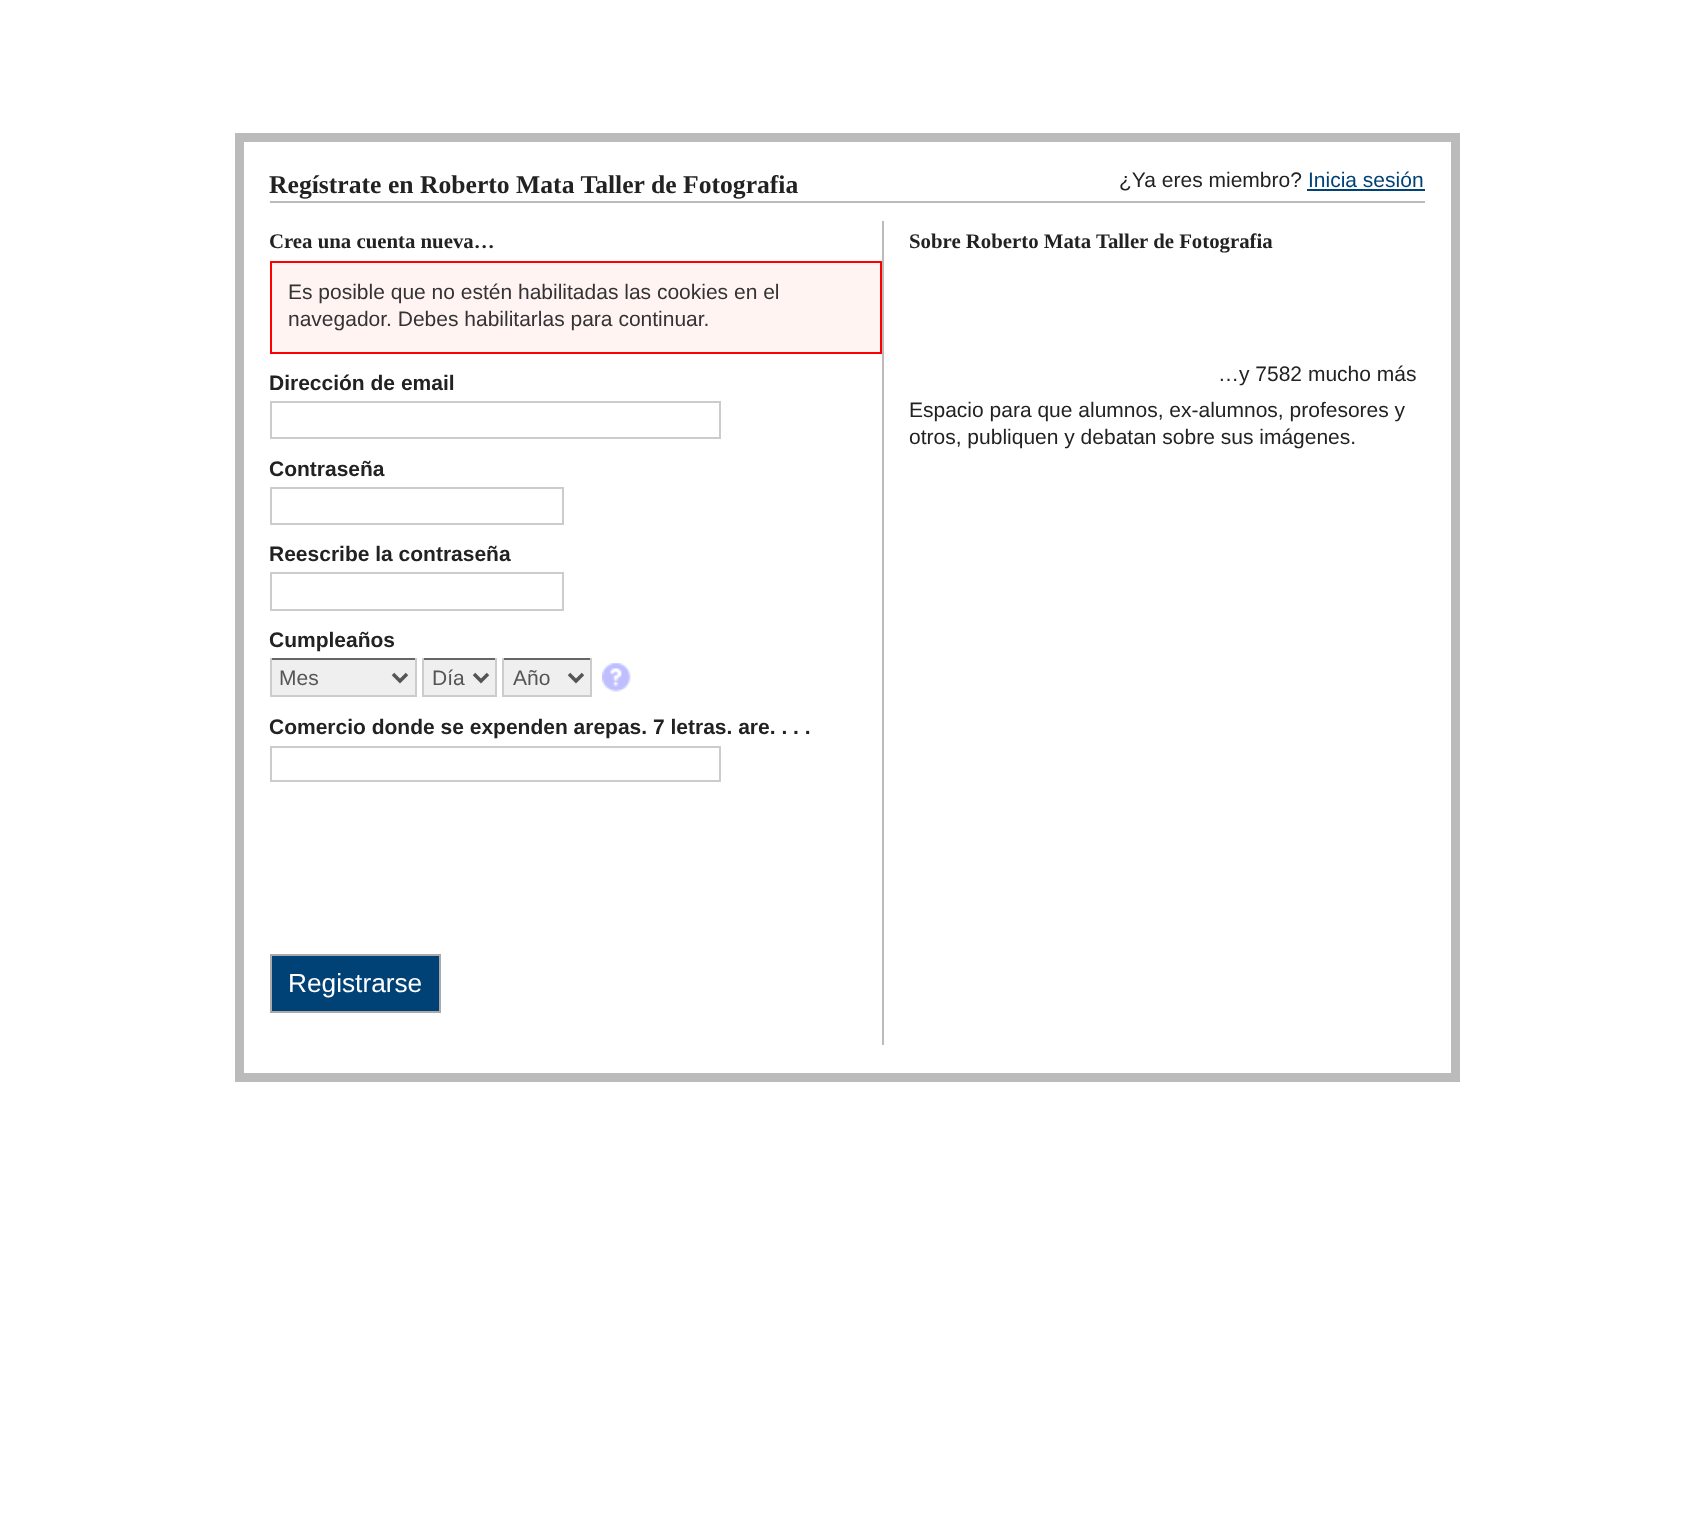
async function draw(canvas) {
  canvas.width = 1692
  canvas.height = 1514
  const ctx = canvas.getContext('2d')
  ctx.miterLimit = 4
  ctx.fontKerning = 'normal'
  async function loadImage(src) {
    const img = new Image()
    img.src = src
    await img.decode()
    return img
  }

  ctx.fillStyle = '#fff'
  ctx.fillRect(0, 0, 1692, 1514)
  ctx.strokeStyle = '#bbb'
  ctx.lineWidth = 9
  ctx.strokeRect(239.5, 137.5, 1216, 940)
  ctx.fillStyle = '#bbb'
  ctx.fillRect(270, 201, 1155, 2)
  ctx.font = 'bold 25.65px Liberation Serif'
  ctx.fillStyle = '#222'
  ctx.fillText('Regístrate en Roberto Mata Taller de Fotografia', 269, 193)
  ctx.font = '21px Liberation Sans'
  ctx.fillText('¿Ya eres miembro?', 1119, 187)
  ctx.fillStyle = '#004276'
  ctx.fillText('Inicia sesión', 1308, 187)
  ctx.fillRect(1307, 189, 118, 2)
  ctx.fillStyle = '#bbb'
  ctx.fillRect(882, 221, 2, 824)
  ctx.font = 'bold 20.8px Liberation Serif'
  ctx.fillStyle = '#222'
  ctx.fillText('Crea una cuenta nueva…', 269, 248)
  ctx.fillStyle = '#fff4f2'
  ctx.beginPath()
  ctx.rect(271, 262, 610, 91)
  ctx.fill()
  ctx.strokeStyle = '#f00'
  ctx.lineWidth = 2
  ctx.stroke()
  ctx.font = '21px Liberation Sans'
  ctx.fillStyle = '#333'
  ctx.fillText('Es posible que no estén habilitadas las cookies en el', 288, 299)
  ctx.fillText('navegador. Debes habilitarlas para continuar.', 288, 326)
  ctx.font = 'bold 21px Liberation Sans'
  ctx.fillStyle = '#222'
  ctx.fillText('Dirección de email', 269, 390)
  ctx.strokeStyle = '#ccc'
  ctx.strokeRect(271, 402, 449, 36)
  ctx.fillText('Contraseña', 269, 476)
  ctx.strokeRect(271, 488, 292, 36)
  ctx.fillText('Reescribe la contraseña', 269, 561)
  ctx.strokeRect(271, 573, 292, 37)
  ctx.fillText('Cumpleaños', 269, 647)
  ctx.fillStyle = '#efefef'
  ctx.fillRect(272, 660, 143, 35)
  ctx.fillStyle = '#666'
  ctx.fillRect(270, 658, 147, 2)
  ctx.fillStyle = '#ccc'
  ctx.fillRect(415, 658, 2, 39)
  ctx.fillRect(270, 695, 147, 2)
  ctx.fillRect(270, 658, 2, 39)
  ctx.beginPath()
  ctx.moveTo(393, 674)
  ctx.lineTo(400, 681)
  ctx.lineTo(407, 674)
  ctx.strokeStyle = '#555'
  ctx.lineWidth = 3.5
  ctx.stroke()
  ctx.font = '21px Liberation Sans'
  ctx.fillStyle = '#555'
  ctx.fillText('Mes', 279, 685)
  ctx.fillStyle = '#efefef'
  ctx.fillRect(424, 660, 71, 35)
  ctx.fillStyle = '#666'
  ctx.fillRect(422, 658, 75, 2)
  ctx.fillStyle = '#ccc'
  ctx.fillRect(495, 658, 2, 39)
  ctx.fillRect(422, 695, 75, 2)
  ctx.fillRect(422, 658, 2, 39)
  ctx.beginPath()
  ctx.moveTo(474, 674)
  ctx.lineTo(481, 681)
  ctx.lineTo(488, 674)
  ctx.stroke()
  ctx.fillStyle = '#555'
  ctx.fillText('Día', 432, 685)
  ctx.fillStyle = '#efefef'
  ctx.fillRect(504, 660, 86, 35)
  ctx.fillStyle = '#666'
  ctx.fillRect(502, 658, 90, 2)
  ctx.fillStyle = '#ccc'
  ctx.fillRect(590, 658, 2, 39)
  ctx.fillRect(502, 695, 90, 2)
  ctx.fillRect(502, 658, 2, 39)
  ctx.beginPath()
  ctx.moveTo(569, 674)
  ctx.lineTo(576, 681)
  ctx.lineTo(583, 674)
  ctx.stroke()
  ctx.fillStyle = '#555'
  ctx.fillText('Año', 513, 685)
  ctx.drawImage(await loadImage('image0.png'), 602, 663, 29, 29)
  ctx.font = 'bold 21px Liberation Sans'
  ctx.fillStyle = '#222'
  ctx.fillText('Comercio donde se expenden arepas. 7 letras. are. . . .', 269, 734)
  ctx.strokeStyle = '#ccc'
  ctx.lineWidth = 2
  ctx.strokeRect(271, 747, 449, 34)
  ctx.fillStyle = '#004276'
  ctx.beginPath()
  ctx.rect(271, 955, 169, 57)
  ctx.fill()
  ctx.strokeStyle = '#aaa'
  ctx.stroke()
  ctx.font = '26.25px Liberation Sans'
  ctx.fillStyle = '#fff'
  ctx.fillText('Registrarse', 288, 992)
  ctx.font = 'bold 20.8px Liberation Serif'
  ctx.fillStyle = '#222'
  ctx.fillText('Sobre Roberto Mata Taller de Fotografia', 909, 248)
  ctx.font = '21px Liberation Sans'
  ctx.fillText('…y 7582 mucho más', 1218, 381)
  ctx.fillText('Espacio para que alumnos, ex-alumnos, profesores y', 909, 417)
  ctx.fillText('otros, publiquen y debatan sobre sus imágenes.', 909, 444)
}

draw(document.querySelector('canvas'))
